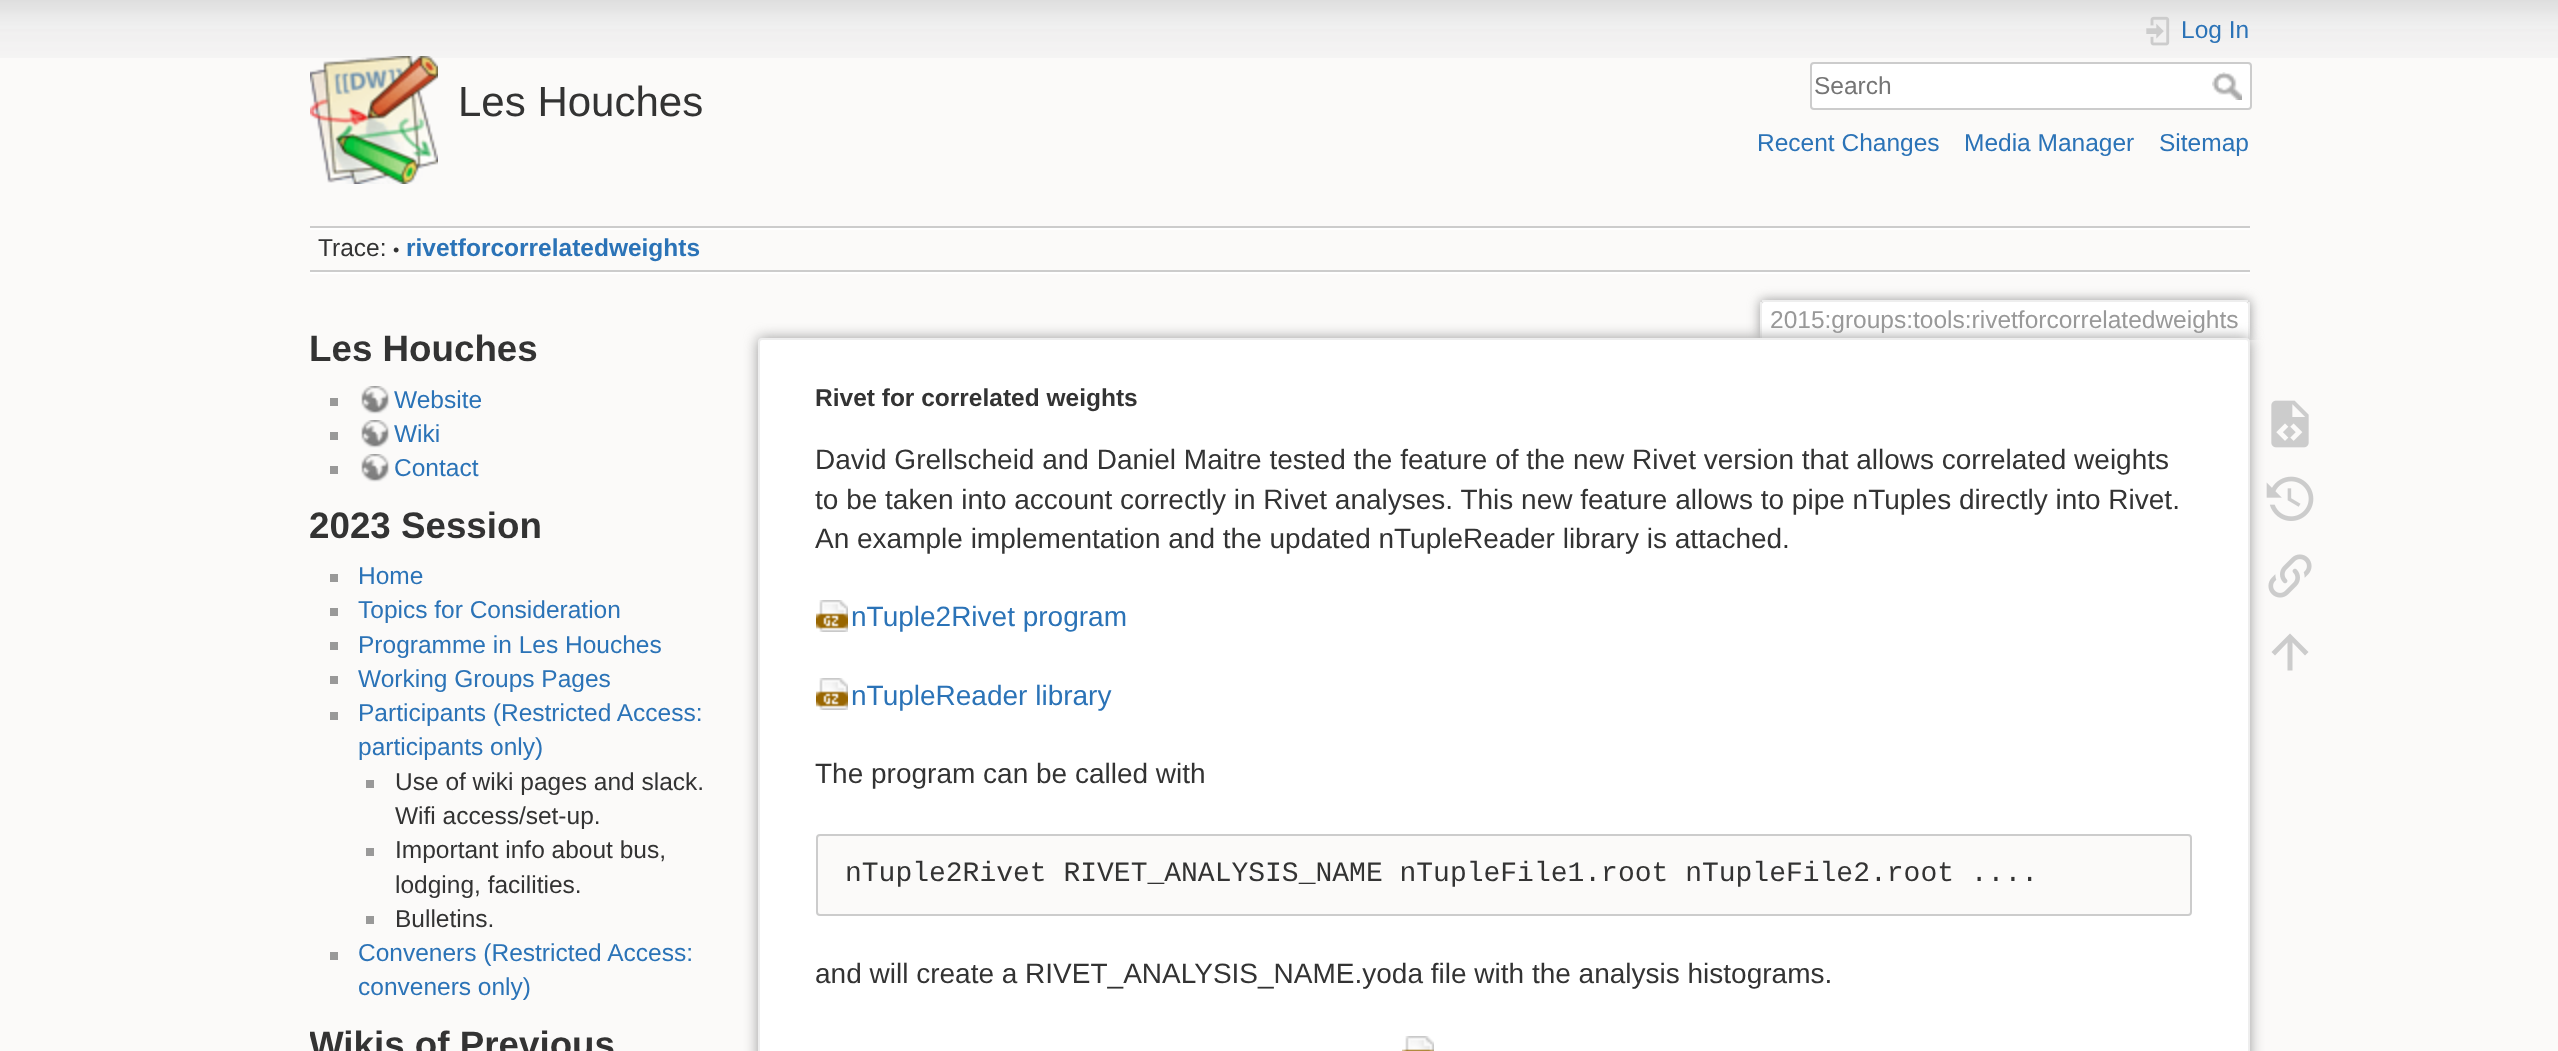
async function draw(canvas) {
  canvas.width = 2558
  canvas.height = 1051
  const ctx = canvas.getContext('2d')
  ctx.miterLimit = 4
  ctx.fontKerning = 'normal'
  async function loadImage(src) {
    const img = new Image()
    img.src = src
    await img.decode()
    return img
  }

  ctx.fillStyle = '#fbfaf9'
  ctx.fillRect(0, 0, 2558, 1051)
  ctx.drawImage(await loadImage('image0.png'), 0, 0, 2558, 58)
  ctx.drawImage(await loadImage('image1.png'), 310, 56, 128, 128)
  ctx.font = '42px Liberation Sans'
  ctx.fillStyle = '#333'
  ctx.fillText('Les Houches', 458, 116)
  ctx.drawImage(await loadImage('image2.png'), 2146, 16, 24, 30)
  ctx.font = '24.5px Liberation Sans'
  ctx.fillStyle = '#2b73b7'
  ctx.fillText('Log In', 2181, 38)
  ctx.fillStyle = '#fff'
  ctx.beginPath()
  ctx.roundRect(1811, 63, 440, 46, 3)
  ctx.fill()
  ctx.strokeStyle = '#ccc'
  ctx.lineWidth = 2
  ctx.stroke()
  ctx.fillStyle = '#757575'
  ctx.fillText('Search', 1814, 94)
  ctx.drawImage(await loadImage('image3.png'), 2212, 72, 30, 28)
  ctx.fillStyle = '#2b73b7'
  ctx.fillText('Recent Changes', 1757, 151)
  ctx.fillText('Media Manager', 1964, 151)
  ctx.fillText('Sitemap', 2159, 151)
  ctx.fillStyle = '#ccc'
  ctx.fillRect(310, 226, 1940, 2)
  ctx.fillStyle = '#fff'
  ctx.fillRect(310, 272, 1940, 2)
  ctx.fillRect(310, 228, 1940, 2)
  ctx.fillStyle = '#ccc'
  ctx.fillRect(310, 270, 1940, 2)
  ctx.fillStyle = '#333'
  ctx.fillText('Trace:', 318, 256)
  ctx.font = '18px Liberation Sans'
  ctx.fillText('•', 393, 256)
  ctx.font = 'bold 24.5px Liberation Sans'
  ctx.fillStyle = '#2b73b7'
  ctx.fillText('rivetforcorrelatedweights', 406, 256)
  ctx.font = 'bold 36.75px Liberation Sans'
  ctx.fillStyle = '#333'
  ctx.fillText('Les Houches', 309, 361)
  ctx.fillStyle = '#999'
  ctx.fillRect(330, 398, 8, 8)
  ctx.drawImage(await loadImage('image4.png'), 361, 386, 29, 28)
  ctx.font = '24.5px Liberation Sans'
  ctx.fillStyle = '#2b73b7'
  ctx.fillText('Website', 394, 408)
  ctx.fillStyle = '#999'
  ctx.fillRect(330, 432, 8, 8)
  ctx.drawImage(await loadImage('image4.png'), 361, 420, 29, 28)
  ctx.fillStyle = '#2b73b7'
  ctx.fillText('Wiki', 394, 442)
  ctx.fillStyle = '#999'
  ctx.fillRect(330, 466, 8, 8)
  ctx.drawImage(await loadImage('image4.png'), 361, 454, 29, 28)
  ctx.fillStyle = '#2b73b7'
  ctx.fillText('Contact', 394, 476)
  ctx.font = 'bold 36.75px Liberation Sans'
  ctx.fillStyle = '#333'
  ctx.fillText('2023 Session', 309, 538)
  ctx.fillStyle = '#999'
  ctx.fillRect(330, 574, 8, 8)
  ctx.font = '24.5px Liberation Sans'
  ctx.fillStyle = '#2b73b7'
  ctx.fillText('Home', 358, 584)
  ctx.fillStyle = '#999'
  ctx.fillRect(330, 608, 8, 8)
  ctx.fillStyle = '#2b73b7'
  ctx.fillText('Topics for Consideration', 358, 618)
  ctx.fillStyle = '#999'
  ctx.fillRect(330, 642, 8, 8)
  ctx.fillStyle = '#2b73b7'
  ctx.fillText('Programme in Les Houches', 358, 653)
  ctx.fillStyle = '#999'
  ctx.fillRect(330, 676, 8, 8)
  ctx.fillStyle = '#2b73b7'
  ctx.fillText('Working Groups Pages', 358, 687)
  ctx.fillStyle = '#999'
  ctx.fillRect(330, 712, 8, 8)
  ctx.fillStyle = '#2b73b7'
  ctx.fillText('Participants (Restricted Access:', 358, 721)
  ctx.fillText('participants only)', 358, 755)
  ctx.fillStyle = '#999'
  ctx.fillRect(366, 780, 8, 8)
  ctx.fillStyle = '#333'
  ctx.fillText('Use of wiki pages and slack.', 395, 790)
  ctx.fillText('Wifi access/set-up.', 395, 824)
  ctx.fillStyle = '#999'
  ctx.fillRect(366, 848, 8, 8)
  ctx.fillStyle = '#333'
  ctx.fillText('Important info about bus,', 395, 858)
  ctx.fillText('lodging, facilities.', 395, 893)
  ctx.fillStyle = '#999'
  ctx.fillRect(366, 916, 8, 8)
  ctx.fillStyle = '#333'
  ctx.fillText('Bulletins.', 395, 927)
  ctx.fillStyle = '#999'
  ctx.fillRect(330, 952, 8, 8)
  ctx.fillStyle = '#2b73b7'
  ctx.fillText('Conveners (Restricted Access:', 358, 961)
  ctx.fillText('conveners only)', 358, 995)
  ctx.save()
  ctx.beginPath()
  ctx.rect(310, 328, 410, 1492)
  ctx.clip()
  ctx.font = 'bold 36.75px Liberation Sans'
  ctx.fillStyle = '#333'
  ctx.fillText('Wikis of Previous', 309, 1057)
  ctx.restore()
  ctx.save()
  ctx.beginPath()
  ctx.rect(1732, 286, 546, 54)
  ctx.clip()
  ctx.fillStyle = '#999'
  ctx.filter = 'blur(6px)'
  ctx.beginPath()
  ctx.roundRect(1760, 300, 490, 40, 4)
  ctx.fill()
  ctx.filter = 'none'
  ctx.restore()
  ctx.fillStyle = '#fff'
  ctx.beginPath()
  ctx.roundRect(1762, 302, 486, 38, [2, 2, 0, 0])
  ctx.fill()
  ctx.fillStyle = '#eee'
  ctx.fillRect(1762, 300, 486, 2)
  ctx.fillRect(2248, 302, 2, 38)
  ctx.fillRect(1760, 302, 2, 38)
  ctx.fillStyle = '#999'
  ctx.fillText('2015:groups:tools:rivetforcorrelatedweights', 1770, 328)
  ctx.filter = 'blur(7px)'
  ctx.beginPath()
  ctx.roundRect(758, 338, 1492, 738, 4)
  ctx.fill()
  ctx.filter = 'none'
  ctx.fillStyle = '#fff'
  ctx.beginPath()
  ctx.roundRect(759, 339, 1490, 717, 3)
  ctx.fill()
  ctx.strokeStyle = '#eee'
  ctx.stroke()
  ctx.font = 'bold 24.5px Liberation Sans'
  ctx.fillStyle = '#333'
  ctx.fillText('Rivet for correlated weights', 815, 406)
  ctx.font = '28px Liberation Sans'
  ctx.fillText('David Grellscheid and Daniel Maitre tested the feature of the new Rivet version that allows correlated weights', 815, 469)
  ctx.fillText('to be taken into account correctly in Rivet analyses. This new feature allows to pipe nTuples directly into Rivet.', 815, 509)
  ctx.fillText('An example implementation and the updated nTupleReader library is attached.', 815, 548)
  ctx.drawImage(await loadImage('image5.png'), 816, 600, 32, 32)
  ctx.fillStyle = '#2b73b7'
  ctx.fillText('nTuple2Rivet program', 851, 626)
  ctx.drawImage(await loadImage('image5.png'), 816, 678, 32, 32)
  ctx.fillText('nTupleReader library', 851, 705)
  ctx.fillStyle = '#333'
  ctx.fillText('The program can be called with', 815, 783)
  ctx.fillStyle = '#fbfaf9'
  ctx.beginPath()
  ctx.roundRect(817, 835, 1374, 80, 3)
  ctx.fill()
  ctx.strokeStyle = '#ccc'
  ctx.stroke()
  ctx.font = '28px Liberation Mono'
  ctx.fillStyle = '#333'
  ctx.fillText('nTuple2Rivet RIVET_ANALYSIS_NAME nTupleFile1.root nTupleFile2.root ....', 845, 881)
  ctx.font = '28px Liberation Sans'
  ctx.fillText('and will create a RIVET_ANALYSIS_NAME.yoda file with the analysis histograms.', 815, 983)
  ctx.drawImage(await loadImage('image6.png'), 1402, 1036, 32, 15)
  ctx.drawImage(await loadImage('image7.png'), 2271, 400, 38, 48)
  ctx.drawImage(await loadImage('image8.png'), 2266, 476, 48, 45)
  ctx.drawImage(await loadImage('image9.png'), 2268, 554, 44, 44)
  ctx.fillStyle = '#ccc'
  ctx.beginPath()
  ctx.moveTo(2292.5, 670.5)
  ctx.lineTo(2287.5, 670.5)
  ctx.lineTo(2287.5, 642.5)
  ctx.lineTo(2275, 655.5)
  ctx.lineTo(2271.5, 652)
  ctx.lineTo(2290, 633.5)
  ctx.lineTo(2308.5, 652)
  ctx.lineTo(2305, 655.5)
  ctx.lineTo(2292.5, 642.5)
  ctx.closePath()
  ctx.fill()
}

draw(document.querySelector('canvas'))
